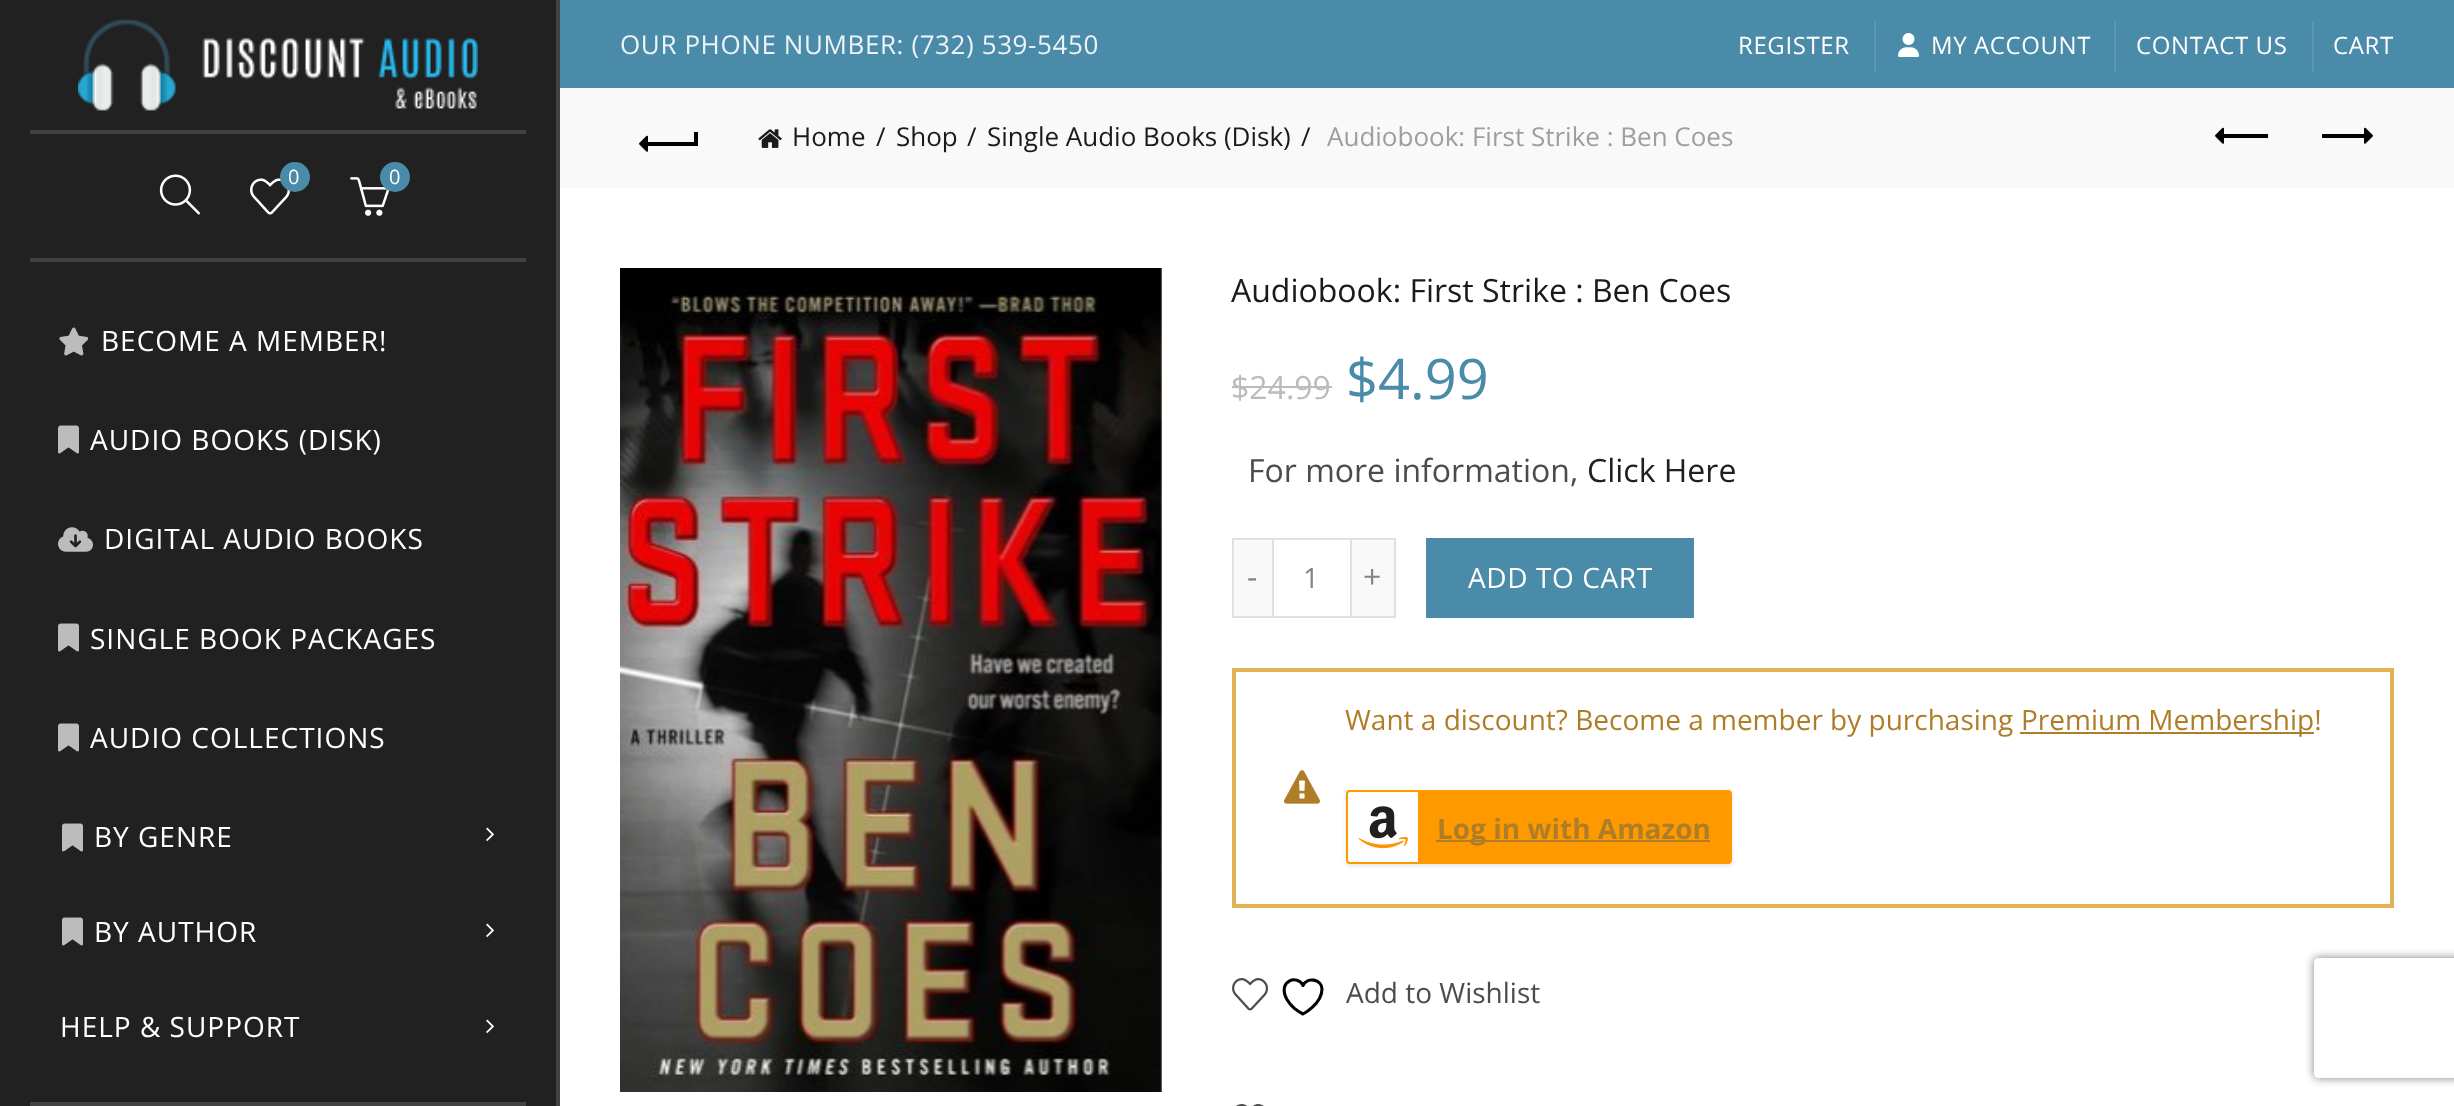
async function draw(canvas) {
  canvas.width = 2454
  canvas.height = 1106
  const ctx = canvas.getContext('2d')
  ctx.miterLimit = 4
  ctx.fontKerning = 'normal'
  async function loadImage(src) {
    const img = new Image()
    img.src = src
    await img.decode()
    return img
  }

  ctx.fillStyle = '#fff'
  ctx.fillRect(0, 0, 2454, 1106)
  ctx.fillStyle = '#4a8ba9'
  ctx.fillRect(560, 0, 1894, 88)
  ctx.letterSpacing = '0.6px'
  ctx.font = '26px Open Sans'
  ctx.fillStyle = '#edf3f6'
  ctx.fillText('OUR PHONE NUMBER: (732) 539-5450', 620, 54)
  ctx.font = '24px Open Sans'
  ctx.fillStyle = '#fff'
  ctx.fillText('REGISTER', 1738, 54)
  ctx.fillStyle = '#5c97b2'
  ctx.fillRect(1874, 22, 2, 50)
  ctx.drawImage(await loadImage('image0.png'), 1898, 33, 21, 24)
  ctx.fillStyle = '#fff'
  ctx.fillText('MY ACCOUNT', 1931, 54)
  ctx.fillStyle = '#5c97b2'
  ctx.fillRect(2114, 22, 2, 50)
  ctx.fillStyle = '#fff'
  ctx.fillText('CONTACT US', 2136, 54)
  ctx.fillStyle = '#5c97b2'
  ctx.fillRect(2312, 22, 2, 50)
  ctx.fillStyle = '#fff'
  ctx.fillText('CART', 2333, 54)
  ctx.fillStyle = '#212121'
  ctx.fillRect(0, 0, 556, 1106)
  ctx.fillStyle = '#424242'
  ctx.fillRect(556, 0, 4, 1106)
  ctx.drawImage(await loadImage('image1.png'), 78, 19, 400, 92)
  ctx.fillRect(30, 130, 496, 4)
  ctx.fillRect(30, 258, 496, 4)
  ctx.drawImage(await loadImage('image2.png'), 159, 174, 41, 41)
  ctx.drawImage(await loadImage('image3.png'), 250, 178, 40, 37)
  ctx.fillStyle = '#4a8ba9'
  ctx.beginPath()
  ctx.arc(295, 177, 15, 0, 2 * Math.PI)
  ctx.fill()
  ctx.letterSpacing = '0px'
  ctx.font = '20px Open Sans'
  ctx.fillStyle = '#fff'
  ctx.fillText('0', 288, 184)
  ctx.drawImage(await loadImage('image4.png'), 350, 177, 40, 39)
  ctx.fillStyle = '#4a8ba9'
  ctx.beginPath()
  ctx.arc(395, 177, 15, 0, 2 * Math.PI)
  ctx.fill()
  ctx.fillStyle = '#fff'
  ctx.fillText('0', 389, 184)
  ctx.drawImage(await loadImage('image5.png'), 59, 327, 30, 29)
  ctx.letterSpacing = '1px'
  ctx.font = '28px Open Sans'
  ctx.fillText('BECOME A MEMBER!', 101, 351)
  ctx.drawImage(await loadImage('image6.png'), 58, 425, 21, 29)
  ctx.fillText('AUDIO BOOKS (DISK)', 90, 450)
  ctx.drawImage(await loadImage('image7.png'), 58, 527, 35, 25)
  ctx.fillText('DIGITAL AUDIO BOOKS', 104, 549)
  ctx.drawImage(await loadImage('image6.png'), 58, 623, 21, 29)
  ctx.fillText('SINGLE BOOK PACKAGES', 90, 649)
  ctx.drawImage(await loadImage('image6.png'), 58, 723, 21, 29)
  ctx.fillText('AUDIO COLLECTIONS', 90, 748)
  ctx.drawImage(await loadImage('image6.png'), 62, 823, 21, 29)
  ctx.fillText('BY GENRE', 94, 847)
  ctx.drawImage(await loadImage('image8.png'), 486, 827, 8, 14)
  ctx.drawImage(await loadImage('image6.png'), 62, 917, 21, 29)
  ctx.fillText('BY AUTHOR', 94, 942)
  ctx.drawImage(await loadImage('image8.png'), 486, 923, 8, 14)
  ctx.fillText('HELP & SUPPORT', 60, 1037)
  ctx.drawImage(await loadImage('image8.png'), 486, 1019, 8, 14)
  ctx.fillStyle = '#424242'
  ctx.fillRect(30, 1102, 496, 4)
  ctx.fillStyle = '#f9f9f9'
  ctx.fillRect(560, 88, 1894, 100)
  ctx.fillStyle = '#000'
  ctx.fillRect(646, 142, 50, 4)
  ctx.drawImage(await loadImage('image9.png'), 639, 135, 9, 17)
  ctx.fillRect(694, 132, 4, 14)
  ctx.drawImage(await loadImage('image10.png'), 758, 129, 24, 19)
  ctx.letterSpacing = '0px'
  ctx.font = '26px Open Sans'
  ctx.fillStyle = '#1b1919'
  ctx.fillText('Home', 792, 146)
  ctx.fillText('/', 876, 146)
  ctx.fillText('Shop', 896, 146)
  ctx.fillText('/', 967, 146)
  ctx.fillText('Single Audio Books (Disk)', 987, 146)
  ctx.fillText('/', 1301, 146)
  ctx.fillStyle = '#9e9e9e'
  ctx.fillText('Audiobook: First Strike : Ben Coes', 1327, 146)
  ctx.fillStyle = '#000'
  ctx.fillRect(2222, 134, 46, 4)
  ctx.drawImage(await loadImage('image9.png'), 2215, 127, 9, 17)
  ctx.fillRect(2322, 134, 46, 4)
  ctx.drawImage(await loadImage('image11.png'), 2364, 127, 9, 17)
  ctx.drawImage(await loadImage('image12.png'), 620, 268, 542, 824)
  ctx.font = '32px Open Sans'
  ctx.fillStyle = '#1b1919'
  ctx.fillText('Audiobook: First Strike : Ben Coes', 1231, 302)
  ctx.fillStyle = '#bbb'
  ctx.fillText('$24.99', 1231, 399)
  ctx.fillRect(1232, 386, 100, 2)
  ctx.font = '56px Open Sans'
  ctx.fillStyle = '#4a8ba9'
  ctx.fillText('$4.99', 1346, 399)
  ctx.font = '32px Open Sans'
  ctx.fillStyle = '#4c4c4c'
  ctx.fillText('For more information,', 1248, 482)
  ctx.fillStyle = '#202020'
  ctx.fillText('Click Here', 1587, 482)
  ctx.fillStyle = '#f9f9f9'
  ctx.fillRect(1234, 540, 38, 76)
  ctx.fillStyle = '#e0e0e0'
  ctx.fillRect(1232, 538, 40, 2)
  ctx.fillRect(1232, 616, 40, 2)
  ctx.fillRect(1232, 538, 2, 80)
  ctx.fillStyle = '#848484'
  ctx.fillText('-', 1247, 588)
  ctx.strokeStyle = '#e0e0e0'
  ctx.lineWidth = 2
  ctx.strokeRect(1273, 539, 78, 78)
  ctx.font = '28px Open Sans'
  ctx.fillText('1', 1303, 588)
  ctx.fillStyle = '#f9f9f9'
  ctx.fillRect(1352, 540, 42, 76)
  ctx.fillStyle = '#e0e0e0'
  ctx.fillRect(1352, 538, 44, 2)
  ctx.fillRect(1394, 538, 2, 80)
  ctx.fillRect(1352, 616, 44, 2)
  ctx.font = '32px Open Sans'
  ctx.fillStyle = '#848484'
  ctx.fillText('+', 1363, 588)
  ctx.fillStyle = '#4a8ba9'
  ctx.fillRect(1426, 538, 268, 80)
  ctx.letterSpacing = '0.6px'
  ctx.font = '28px Open Sans'
  ctx.fillStyle = '#fff'
  ctx.fillText('ADD TO CART', 1468, 588)
  ctx.strokeStyle = '#e0b252'
  ctx.lineWidth = 4
  ctx.strokeRect(1234, 670, 1158, 236)
  ctx.letterSpacing = '0px'
  ctx.fillStyle = '#af7d27'
  ctx.fillText('Want a discount? Become a member by purchasing', 1345, 730)
  ctx.fillRect(2020, 732, 294, 2)
  ctx.fillText('Premium Membership!', 2021, 730)
  ctx.drawImage(await loadImage('image13.png'), 1284, 770, 36, 34)
  ctx.fillStyle = '#0000001a'
  ctx.filter = 'blur(2px)'
  ctx.beginPath()
  ctx.roundRect(1346, 792, 386, 74, 4)
  ctx.fill()
  ctx.filter = 'none'
  ctx.fillStyle = '#f90'
  ctx.beginPath()
  ctx.roundRect(1347, 791, 384, 72, 3)
  ctx.fill()
  ctx.strokeStyle = '#f90'
  ctx.lineWidth = 2
  ctx.stroke()
  ctx.fillStyle = '#fff'
  ctx.beginPath()
  ctx.roundRect(1348, 792, 70, 70, [2, 0, 0, 2])
  ctx.fill()
  ctx.drawImage(await loadImage('image14.png'), 1358, 806, 50, 43)
  ctx.fillStyle = '#af7d27'
  ctx.fillRect(1436, 840, 274, 2)
  ctx.font = 'bold 28px Open Sans'
  ctx.fillText('Log in with Amazon', 1437, 839)
  ctx.drawImage(await loadImage('image15.png'), 1232, 978, 37, 33)
  ctx.beginPath()
  ctx.moveTo(1322, 989)
  ctx.bezierCurveTo(1322, 979, 1307, 976.5, 1303, 985.5)
  ctx.bezierCurveTo(1298, 974, 1276.5, 980.5, 1287, 999.5)
  ctx.bezierCurveTo(1290.5, 1005.5, 1297, 1011, 1303, 1014)
  ctx.bezierCurveTo(1303, 1014, 1322, 1004, 1322, 989)
  ctx.closePath()
  ctx.strokeStyle = '#000'
  ctx.lineWidth = 3.1
  ctx.lineCap = 'round'
  ctx.lineJoin = 'round'
  ctx.stroke()
  ctx.font = '28px Open Sans'
  ctx.fillStyle = '#4c4c4c'
  ctx.fillText('Add to Wishlist', 1346, 1003)
  ctx.drawImage(await loadImage('image16.png'), 1236, 1104, 28, 2)
  ctx.save()
  ctx.beginPath()
  ctx.moveTo(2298, 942)
  ctx.lineTo(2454, 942)
  ctx.lineTo(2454, 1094)
  ctx.lineTo(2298, 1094)
  ctx.closePath()
  ctx.moveTo(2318, 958)
  ctx.lineTo(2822, 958)
  ctx.bezierCurveTo(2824, 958, 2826, 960, 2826, 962)
  ctx.lineTo(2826, 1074)
  ctx.bezierCurveTo(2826, 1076, 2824, 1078, 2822, 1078)
  ctx.lineTo(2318, 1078)
  ctx.bezierCurveTo(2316, 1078, 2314, 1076, 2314, 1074)
  ctx.lineTo(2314, 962)
  ctx.bezierCurveTo(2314, 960, 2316, 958, 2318, 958)
  ctx.closePath()
  ctx.clip('evenodd')
  ctx.fillStyle = '#808080'
  ctx.filter = 'blur(5px)'
  ctx.beginPath()
  ctx.roundRect(2314, 958, 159, 120, 4)
  ctx.fill()
  ctx.filter = 'none'
  ctx.restore()
}

draw(document.querySelector('canvas'))
